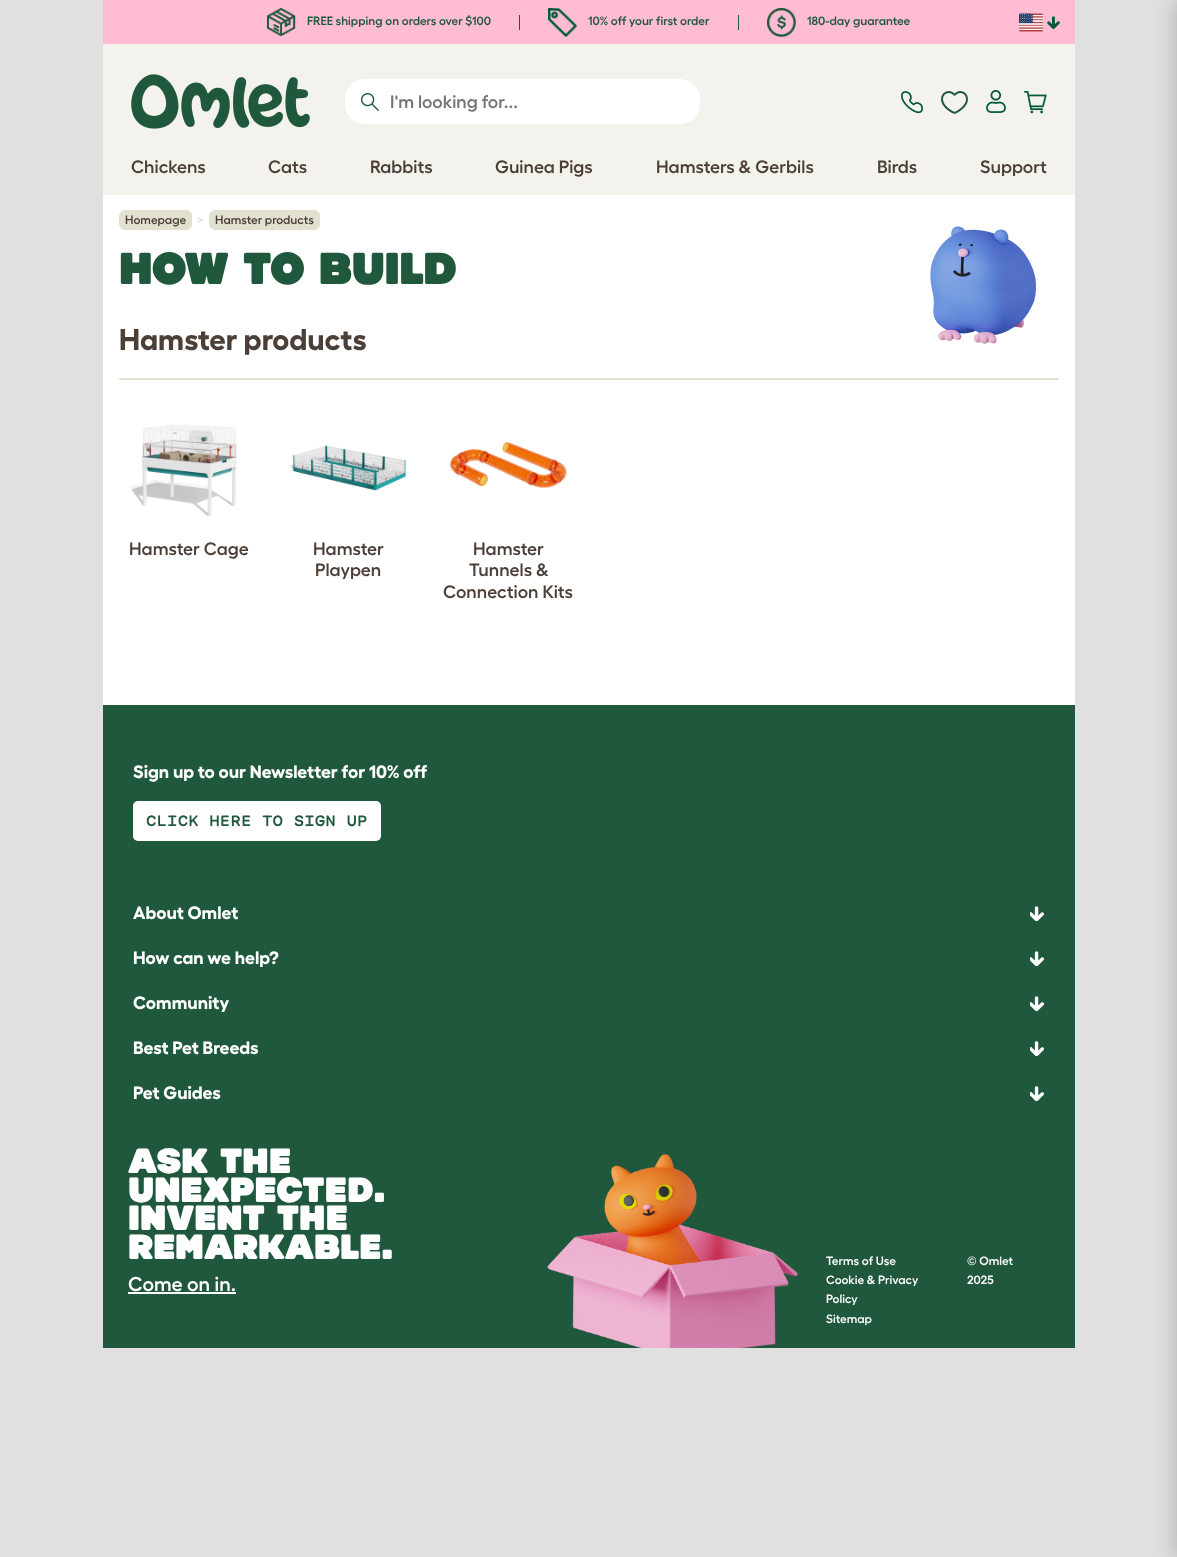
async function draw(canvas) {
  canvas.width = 1177
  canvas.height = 1557
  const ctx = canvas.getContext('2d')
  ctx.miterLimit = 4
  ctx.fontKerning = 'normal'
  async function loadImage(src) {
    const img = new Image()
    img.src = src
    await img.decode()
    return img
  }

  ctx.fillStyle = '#e0e0e0'
  ctx.fillRect(0, 0, 1177, 1557)
  ctx.fillStyle = '#fff'
  ctx.fillRect(103, 195, 972, 510)
  ctx.fillStyle = '#ffbcd3'
  ctx.fillRect(103, 0, 972, 44)
  ctx.drawImage(await loadImage('image0.png'), 267, 8, 29, 29)
  ctx.font = '600 12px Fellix'
  ctx.fillStyle = '#1f583c'
  ctx.fillText('FREE shipping on orders over $100', 307, 25)
  ctx.fillRect(519, 15, 1, 15)
  ctx.drawImage(await loadImage('image1.png'), 548, 8, 29, 29)
  ctx.fillText('10% off your first order', 588, 25)
  ctx.fillRect(738, 15, 1, 15)
  ctx.drawImage(await loadImage('image2.png'), 767, 8, 29, 29)
  ctx.fillText('180-day guarantee', 807, 25)
  ctx.drawImage(await loadImage('image3.png'), 1019, 13, 24, 19)
  ctx.drawImage(await loadImage('image4.png'), 1047, 16, 13, 13)
  ctx.fillStyle = '#f4f2ed'
  ctx.fillRect(103, 44, 972, 151)
  ctx.drawImage(await loadImage('image5.png'), 131, 74, 179, 55)
  ctx.fillStyle = '#fff'
  ctx.beginPath()
  ctx.roundRect(345, 79, 355, 45, 20)
  ctx.fill()
  ctx.drawImage(await loadImage('image6.png'), 361, 93, 18, 18)
  ctx.font = '600 18px Fellix'
  ctx.fillStyle = '#757575'
  ctx.fillText('I\'m looking for...', 390, 108)
  ctx.drawImage(await loadImage('image7.png'), 901, 91, 22, 23)
  ctx.drawImage(await loadImage('image8.png'), 941, 91, 27, 23)
  ctx.drawImage(await loadImage('image9.png'), 986, 90, 20, 23)
  ctx.drawImage(await loadImage('image10.png'), 1024, 91, 23, 23)
  ctx.fillStyle = '#4c3f37'
  ctx.fillText('Chickens', 131, 173)
  ctx.fillText('Cats', 268, 173)
  ctx.fillText('Rabbits', 370, 173)
  ctx.fillText('Guinea Pigs', 495, 173)
  ctx.fillText('Hamsters & Gerbils', 656, 173)
  ctx.fillText('Birds', 877, 173)
  ctx.fillText('Support', 980, 173)
  ctx.fillStyle = '#e2e0cf'
  ctx.beginPath()
  ctx.roundRect(119, 210, 73, 20, 6)
  ctx.fill()
  ctx.font = '600 12px Fellix'
  ctx.fillStyle = '#4c3f37'
  ctx.fillText('Homepage', 125, 224)
  ctx.fillStyle = '#e2e0cf'
  ctx.fillText('>', 197, 224)
  ctx.beginPath()
  ctx.roundRect(209, 210, 111, 20, 6)
  ctx.fill()
  ctx.fillStyle = '#4c3f37'
  ctx.fillText('Hamster products', 215, 224)
  ctx.fillStyle = '#00000033'
  ctx.filter = 'blur(10px)'
  ctx.beginPath()
  ctx.rect(1175, 0, 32, 1557)
  ctx.fill()
  ctx.filter = 'none'
  ctx.letterSpacing = '-0.5px'
  ctx.font = 'bold 46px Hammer'
  ctx.fillStyle = '#1f583c'
  ctx.fillText('HOW TO BUILD', 119, 284)
  ctx.drawImage(await loadImage('image11.png'), 930, 226, 106, 118)
  ctx.letterSpacing = '0px'
  ctx.font = 'bold 30px Fellix'
  ctx.fillStyle = '#4c3f37'
  ctx.fillText('Hamster products', 119, 350)
  ctx.fillStyle = '#e2e0cf'
  ctx.fillRect(119, 378, 940, 2)
  ctx.drawImage(await loadImage('image12.png'), 130, 424, 107, 93)
  ctx.font = '600 18px Fellix'
  ctx.fillStyle = '#4c3f37'
  ctx.fillText('Hamster Cage', 129, 555)
  ctx.drawImage(await loadImage('image13.png'), 290, 445, 117, 46)
  ctx.fillText('Hamster', 313, 555)
  ctx.fillText('Playpen', 315, 576)
  ctx.drawImage(await loadImage('image14.png'), 449, 442, 119, 46)
  ctx.fillText('Hamster', 473, 555)
  ctx.fillText('Tunnels &', 469, 576)
  ctx.fillText('Connection Kits', 443, 598)
  ctx.fillStyle = '#1f583c'
  ctx.fillRect(103, 705, 972, 643)
  ctx.font = 'bold 18px Fellix'
  ctx.fillStyle = '#fff'
  ctx.fillText('Sign up to our Newsletter for 10% off', 133, 778)
  ctx.beginPath()
  ctx.roundRect(133, 801, 248, 40, 5)
  ctx.fill()
  ctx.font = '500 15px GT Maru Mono'
  ctx.fillStyle = '#1f583c'
  ctx.fillText('CLICK HERE TO SIGN UP', 146, 826)
  ctx.font = 'bold 18px Fellix'
  ctx.fillStyle = '#fff'
  ctx.fillText('About Omlet', 133, 919)
  ctx.drawImage(await loadImage('image15.png'), 1030, 906, 14, 15)
  ctx.fillText('How can we help?', 133, 964)
  ctx.drawImage(await loadImage('image16.png'), 1030, 951, 14, 15)
  ctx.fillText('Community', 133, 1009)
  ctx.drawImage(await loadImage('image17.png'), 1030, 996, 14, 15)
  ctx.fillText('Best Pet Breeds', 133, 1054)
  ctx.drawImage(await loadImage('image18.png'), 1030, 1041, 14, 15)
  ctx.fillText('Pet Guides', 133, 1099)
  ctx.drawImage(await loadImage('image19.png'), 1030, 1086, 14, 15)
  ctx.font = 'bold 36px Hammer'
  ctx.fillText('ASK THE', 128, 1173)
  ctx.fillText('UNEXPECTED.', 128, 1202)
  ctx.fillText('INVENT THE', 128, 1230)
  ctx.fillText('REMARKABLE.', 128, 1259)
  ctx.font = '600 20px Fellix'
  ctx.fillText('Come on in.', 128, 1291)
  ctx.fillRect(128, 1292, 108, 2)
  ctx.drawImage(await loadImage('image20.png'), 547, 1153, 251, 195)
  ctx.font = '600 12px Fellix'
  ctx.fillText('Terms of Use', 826, 1265)
  ctx.fillText('Cookie & Privacy', 826, 1284)
  ctx.fillText('Policy', 826, 1303)
  ctx.fillText('Sitemap', 826, 1323)
  ctx.fillText('© Omlet', 967, 1265)
  ctx.fillText('2025', 967, 1284)
}

draw(document.querySelector('canvas'))
